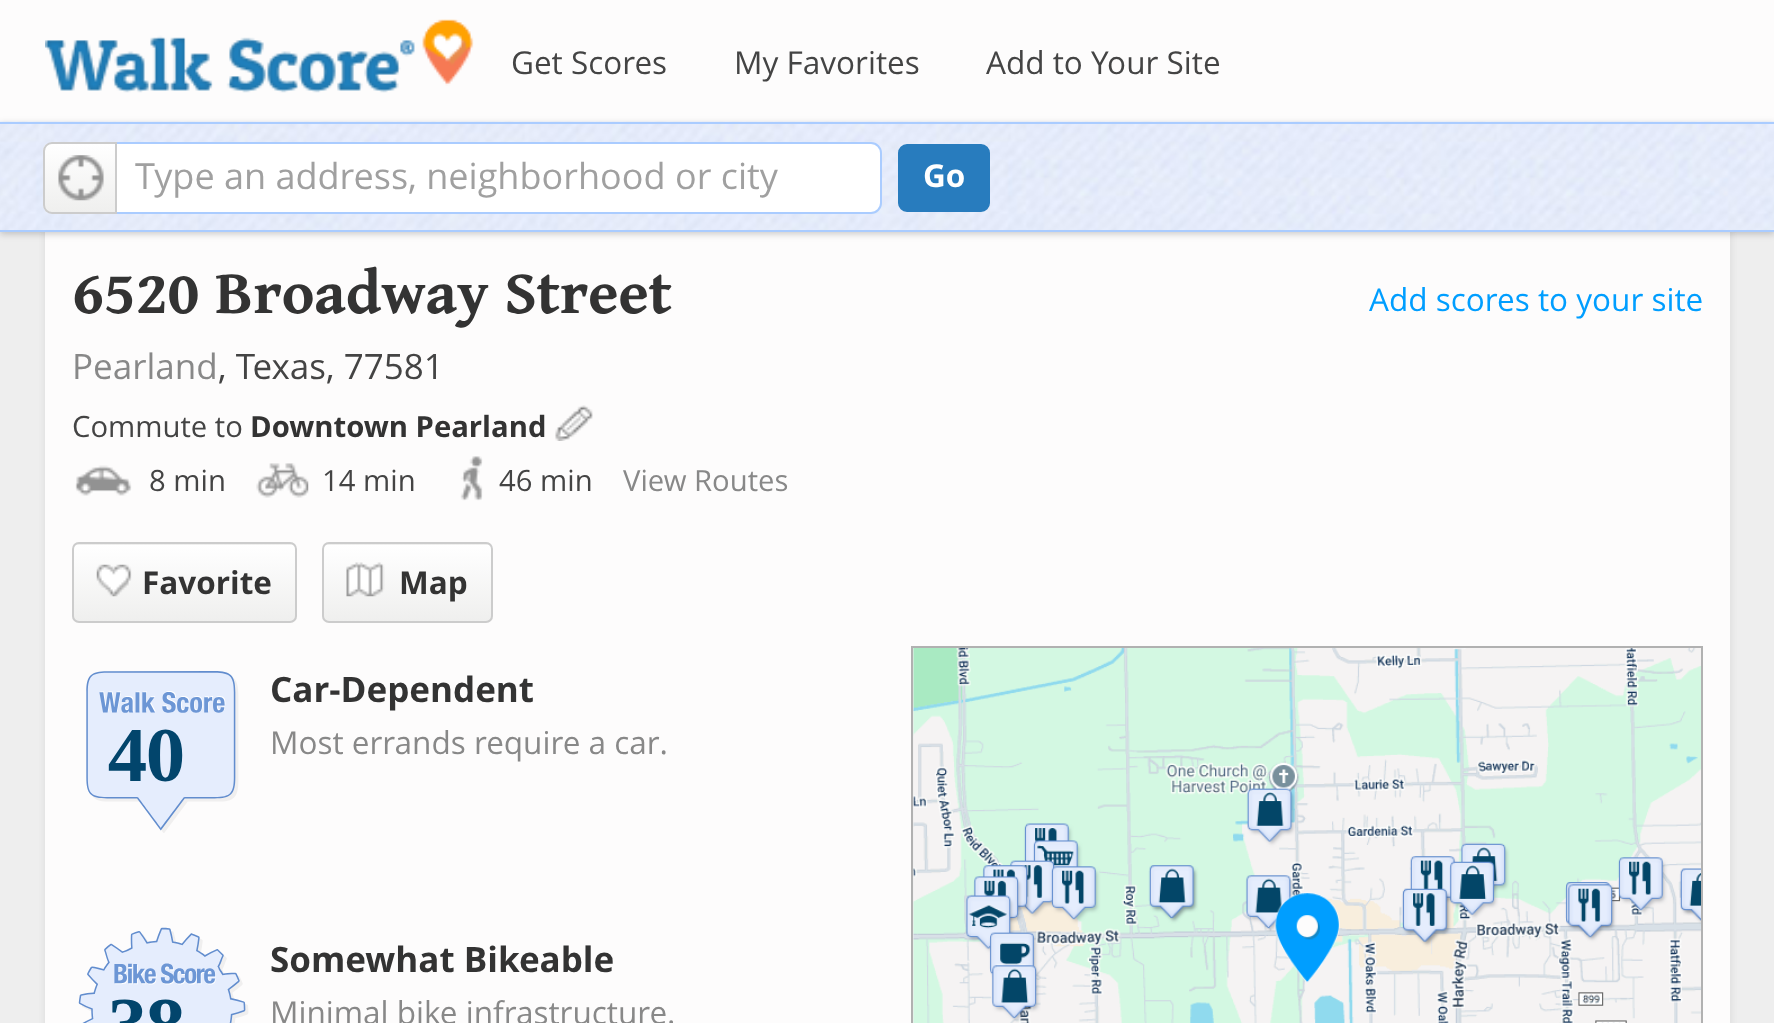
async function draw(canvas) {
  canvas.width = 1774
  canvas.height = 1023
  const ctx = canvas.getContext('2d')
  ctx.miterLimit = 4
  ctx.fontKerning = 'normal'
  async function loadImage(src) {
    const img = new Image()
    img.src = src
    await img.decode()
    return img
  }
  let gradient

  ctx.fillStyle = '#eee'
  ctx.fillRect(0, 0, 1774, 1023)
  ctx.fillStyle = '#fdfcfc'
  ctx.fillRect(0, 0, 1774, 122)
  ctx.drawImage(await loadImage('image0.png'), 45, 19, 429, 74)
  ctx.font = '31.5px Open Sans'
  ctx.fillStyle = '#444'
  ctx.fillText('Get Scores', 511, 74)
  ctx.fillText('My Favorites', 734, 74)
  ctx.fillText('Add to Your Site', 986, 74)
  ctx.fillStyle = '#e2e2e2'
  ctx.filter = 'blur(2px)'
  ctx.beginPath()
  ctx.rect(43, 230, 1690, 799)
  ctx.fill()
  ctx.filter = 'none'
  ctx.fillStyle = '#fdfcfc'
  ctx.fillRect(45, 232, 1685, 791)
  ctx.fillStyle = '#00000033'
  ctx.filter = 'blur(3.5px)'
  ctx.beginPath()
  ctx.rect(0, 124, 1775, 110)
  ctx.fill()
  ctx.filter = 'none'
  ctx.drawImage(await loadImage('image1.png'), 0, 121, 1774, 109)
  ctx.fillStyle = '#acf'
  ctx.fillRect(0, 122, 1774, 2)
  ctx.fillRect(0, 230, 1774, 2)
  ctx.save()
  ctx.beginPath()
  ctx.roundRect(43, 142, 74, 72, [9, 0, 0, 9])
  ctx.clip()
  gradient = ctx.createLinearGradient(80, 144, 80, 212)
  gradient.addColorStop(0, '#fff')
  gradient.addColorStop(1, '#efefee')
  ctx.fillStyle = gradient
  ctx.fillRect(43, 144, 72, 68)
  ctx.restore()
  ctx.fillStyle = '#fff'
  ctx.beginPath()
  ctx.roundRect(116, 143, 765, 70, [0, 10, 10, 0])
  ctx.fill()
  ctx.strokeStyle = '#acf'
  ctx.lineWidth = 2
  ctx.stroke()
  ctx.beginPath()
  ctx.roundRect(44, 143, 72, 70, [8, 0, 0, 8])
  ctx.strokeStyle = '#ccc'
  ctx.stroke()
  ctx.drawImage(await loadImage('image2.png'), 58, 155, 46, 46)
  ctx.font = '36px Open Sans'
  ctx.fillStyle = '#a0a0a0'
  ctx.fillText('Type an address, neighborhood or city', 135, 189)
  ctx.fillStyle = '#287cbe'
  ctx.beginPath()
  ctx.roundRect(899, 145, 90, 66, 8)
  ctx.fill()
  ctx.strokeStyle = '#287cbe'
  ctx.stroke()
  ctx.font = 'bold 31.5px Open Sans'
  ctx.fillStyle = '#fff'
  ctx.fillText('Go', 923, 187)
  ctx.font = 'bold 61.5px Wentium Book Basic'
  ctx.fillStyle = '#333'
  ctx.fillText('6520 Broadway Street', 72, 313)
  ctx.font = '35px Open Sans'
  ctx.fillStyle = '#888'
  ctx.fillText('Pearland', 72, 379)
  ctx.fillStyle = '#444'
  ctx.fillText(', Texas, 77581', 218, 379)
  ctx.font = '31.5px Open Sans'
  ctx.fillStyle = '#009eff'
  ctx.fillText('Add scores to your site', 1369, 311)
  ctx.font = '29.25px Open Sans'
  ctx.fillStyle = '#444'
  ctx.fillText('Commute to', 72, 437)
  ctx.font = 'bold 29.25px Open Sans'
  ctx.fillStyle = '#333'
  ctx.fillText('Downtown Pearland', 250, 437)
  ctx.drawImage(await loadImage('image3.png'), 555, 405, 38, 36)
  ctx.drawImage(await loadImage('image4.png'), 75, 465, 57, 31)
  ctx.font = '29.25px Open Sans'
  ctx.fillStyle = '#444'
  ctx.fillText('8 min', 149, 491)
  ctx.drawImage(await loadImage('image5.png'), 256, 463, 53, 35)
  ctx.fillText('14 min', 322, 491)
  ctx.drawImage(await loadImage('image6.png'), 460, 456, 23, 45)
  ctx.fillText('46 min', 499, 491)
  ctx.fillStyle = '#888'
  ctx.fillText('View Routes', 623, 491)
  ctx.save()
  ctx.beginPath()
  ctx.roundRect(72, 542, 225, 81, 7)
  ctx.clip()
  gradient = ctx.createLinearGradient(185, 468, 185, 545)
  gradient.addColorStop(0, '#fff')
  gradient.addColorStop(1, '#efefee')
  ctx.fillStyle = gradient
  ctx.fillRect(72, 542, 225, 3)
  gradient = ctx.createLinearGradient(185, 545, 185, 621)
  gradient.addColorStop(0, '#fff')
  gradient.addColorStop(1, '#efefee')
  ctx.fillStyle = gradient
  ctx.fillRect(72, 545, 225, 76)
  ctx.restore()
  ctx.beginPath()
  ctx.roundRect(73, 543, 223, 79, 6)
  ctx.strokeStyle = '#ccc'
  ctx.stroke()
  ctx.drawImage(await loadImage('image7.png'), 96, 564, 36, 33)
  ctx.font = 'bold 31.5px Open Sans'
  ctx.fillStyle = '#333'
  ctx.fillText('Favorite', 142, 594)
  ctx.save()
  ctx.beginPath()
  ctx.roundRect(322, 542, 171, 81, 7)
  ctx.clip()
  gradient = ctx.createLinearGradient(407, 468, 407, 545)
  gradient.addColorStop(0, '#fff')
  gradient.addColorStop(1, '#efefee')
  ctx.fillStyle = gradient
  ctx.fillRect(322, 542, 171, 3)
  gradient = ctx.createLinearGradient(407, 545, 407, 621)
  gradient.addColorStop(0, '#fff')
  gradient.addColorStop(1, '#efefee')
  ctx.fillStyle = gradient
  ctx.fillRect(322, 545, 171, 76)
  ctx.restore()
  ctx.beginPath()
  ctx.roundRect(323, 543, 169, 79, 6)
  ctx.stroke()
  ctx.drawImage(await loadImage('image8.png'), 346, 562, 39, 35)
  ctx.fillText('Map', 399, 594)
  ctx.drawImage(await loadImage('image9.png'), 86, 671, 153, 162)
  ctx.font = 'bold 35px Open Sans'
  ctx.fillText('Car-Dependent', 270, 702)
  ctx.font = '31.5px Open Sans'
  ctx.fillStyle = '#888'
  ctx.fillText('Most errands require a car.', 270, 754)
  ctx.drawImage(await loadImage('image10.png'), 78, 927, 171, 96)
  ctx.font = 'bold 35px Open Sans'
  ctx.fillStyle = '#333'
  ctx.fillText('Somewhat Bikeable', 270, 972)
  ctx.font = '31.5px Open Sans'
  ctx.fillStyle = '#888'
  ctx.fillText('Minimal bike infrastructure.', 270, 1024)
  ctx.fillStyle = '#eee'
  ctx.fillRect(913, 648, 1, 375)
  ctx.strokeStyle = '#b1b1b1'
  ctx.strokeRect(912, 647, 790, 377)
  ctx.drawImage(await loadImage('image11.png'), 913, 648, 788, 375)
  ctx.drawImage(await loadImage('image12.png'), 1274, 892, 66, 91)
}

draw(document.querySelector('canvas'))
